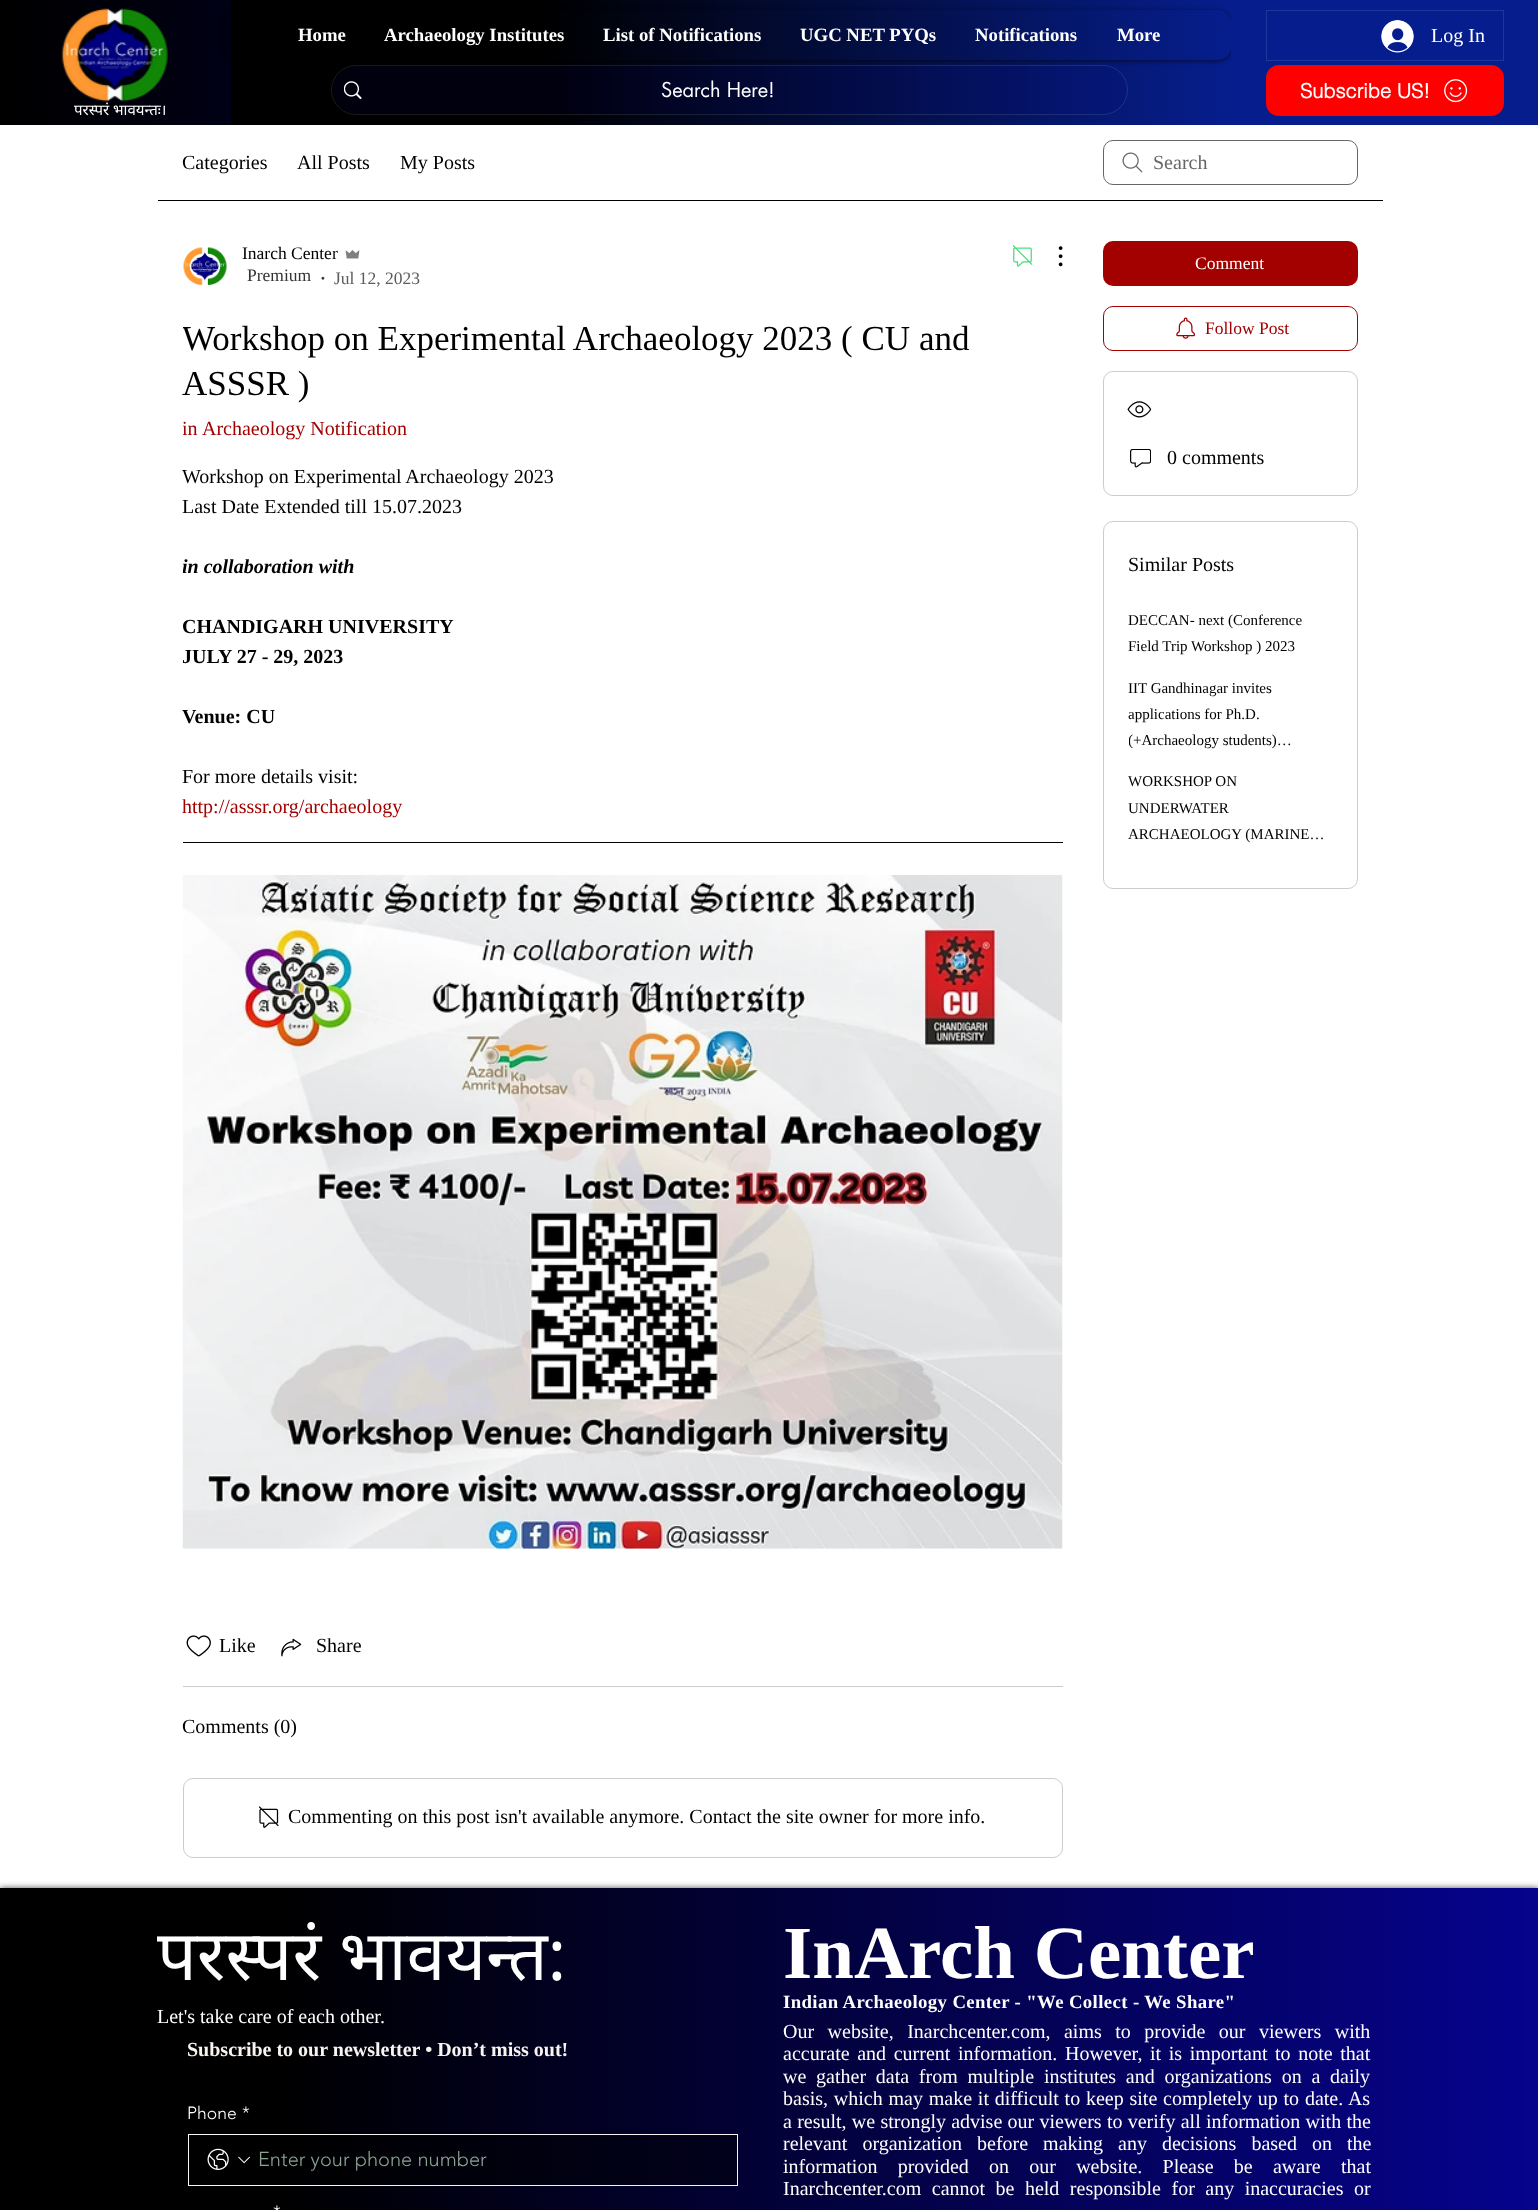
async function draw(canvas) {
  canvas.width = 1538
  canvas.height = 2210
  const ctx = canvas.getContext('2d')
  ctx.miterLimit = 4
  ctx.fontKerning = 'normal'
  async function loadImage(src) {
    const img = new Image()
    img.src = src
    await img.decode()
    return img
  }
  let gradient

  ctx.fillStyle = '#fff'
  ctx.fillRect(0, 0, 1538, 2210)
  gradient = ctx.createLinearGradient(0, 63, 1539, 62)
  gradient.addColorStop(0, '#000')
  gradient.addColorStop(1, '#06038d')
  ctx.fillStyle = gradient
  ctx.fillRect(0, 0, 231, 125)
  gradient = ctx.createLinearGradient(231, 63, 1231, 62)
  gradient.addColorStop(0.31, '#000')
  gradient.addColorStop(1, '#061e8d')
  ctx.fillStyle = gradient
  ctx.fillRect(231, 0, 1000, 125)
  ctx.save()
  ctx.beginPath()
  ctx.moveTo(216, 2)
  ctx.lineTo(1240, 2)
  ctx.lineTo(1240, 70)
  ctx.lineTo(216, 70)
  ctx.closePath()
  ctx.moveTo(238, 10)
  ctx.lineTo(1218, 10)
  ctx.bezierCurveTo(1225, 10, 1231, 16, 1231, 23)
  ctx.lineTo(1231, 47)
  ctx.bezierCurveTo(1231, 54, 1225, 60, 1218, 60)
  ctx.lineTo(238, 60)
  ctx.bezierCurveTo(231, 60, 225, 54, 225, 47)
  ctx.lineTo(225, 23)
  ctx.bezierCurveTo(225, 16, 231, 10, 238, 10)
  ctx.closePath()
  ctx.clip('evenodd')
  ctx.fillStyle = '#00000099'
  ctx.filter = 'blur(2.5px)'
  ctx.beginPath()
  ctx.roundRect(225, 11, 1006, 50, 13)
  ctx.fill()
  ctx.filter = 'none'
  ctx.restore()
  ctx.font = 'bold 18.75px Liberation Serif'
  ctx.fillStyle = '#fff'
  ctx.fillText('Home', 298, 41)
  ctx.fillText('Archaeology Institutes', 384, 41)
  ctx.fillText('List of Notifications', 603, 41)
  ctx.fillText('UGC NET PYQs', 800, 41)
  ctx.fillText('Notifications', 975, 41)
  ctx.fillText('More', 1117, 41)
  ctx.beginPath()
  ctx.roundRect(331.5, 65.5, 796, 49, 24.5)
  ctx.strokeStyle = '#ffffff1a'
  ctx.stroke()
  ctx.fillStyle = '#06038d1a'
  ctx.beginPath()
  ctx.roundRect(333, 66, 793, 48, 24)
  ctx.fill()
  ctx.drawImage(await loadImage('image0.png'), 344, 81, 18, 18)
  ctx.font = '20px futura'
  ctx.fillStyle = '#fff'
  ctx.fillText('Search Here!', 661, 97)
  ctx.fillStyle = '#061e8d'
  ctx.fillRect(1231, 0, 307, 125)
  ctx.strokeStyle = '#1f3598'
  ctx.strokeRect(1266.5, 10.5, 237, 50)
  ctx.drawImage(await loadImage('image1.png'), 1381, 20, 33, 33)
  ctx.font = '20px Liberation Serif'
  ctx.fillStyle = '#fff'
  ctx.fillText('Log In', 1431, 42)
  ctx.fillStyle = '#f00'
  ctx.beginPath()
  ctx.roundRect(1266, 65, 238, 51, 13)
  ctx.fill()
  ctx.font = 'bold 20px helvetica'
  ctx.fillStyle = '#fff'
  ctx.fillText('Subscribe US!', 1300, 98)
  ctx.drawImage(await loadImage('image2.png'), 1444, 79, 24, 24)
  ctx.drawImage(await loadImage('image3.png'), 61, 8, 107, 94)
  ctx.font = '15px Noto Sans'
  ctx.fillText('परस्परं भावयन्तः।', 74, 115)
  ctx.fillStyle = '#000'
  ctx.fillRect(158, 200, 1225, 1)
  ctx.font = '20px Liberation Serif'
  ctx.fillText('Categories', 182, 169)
  ctx.fillText('All Posts', 297, 169)
  ctx.fillText('My Posts', 400, 169)
  ctx.drawImage(await loadImage('image4.png'), 1122, 152, 21, 21)
  ctx.beginPath()
  ctx.roundRect(1103.5, 140.5, 254, 44, 9.5)
  ctx.strokeStyle = '#666'
  ctx.stroke()
  ctx.fillStyle = '#666'
  ctx.fillText('Search', 1153, 169)
  ctx.drawImage(await loadImage('image5.png'), 183, 247, 44, 38)
  ctx.font = '17.5px Liberation Serif'
  ctx.fillStyle = '#000'
  ctx.fillText('Inarch Center', 242, 259)
  ctx.drawImage(await loadImage('image6.png'), 345, 250, 15, 9)
  ctx.fillStyle = '#333'
  ctx.fillText('Premium', 247, 281)
  ctx.font = 'bold 17.5px Liberation Serif'
  ctx.fillText('·', 320, 284)
  ctx.font = '17.5px Liberation Serif'
  ctx.fillStyle = '#5c5c5c'
  ctx.fillText('Jul 12, 2023', 334, 284)
  ctx.drawImage(await loadImage('image7.png'), 1013, 245, 20, 22)
  ctx.drawImage(await loadImage('image8.png'), 1058, 246, 5, 21)
  ctx.save()
  ctx.beginPath()
  ctx.rect(183, 316, 880, 90)
  ctx.clip()
  ctx.font = '35px Liberation Serif'
  ctx.fillStyle = '#000'
  ctx.fillText('Workshop on Experimental Archaeology 2023 ( CU and', 182, 350)
  ctx.restore()
  ctx.font = '35px Liberation Serif'
  ctx.fillStyle = '#000'
  ctx.fillText('ASSSR )', 182, 395)
  ctx.save()
  ctx.beginPath()
  ctx.rect(183, 411, 225, 35)
  ctx.clip()
  ctx.font = '20px Liberation Serif'
  ctx.fillStyle = '#a30000'
  ctx.fillText('in', 182, 435)
  ctx.restore()
  ctx.font = '20px Liberation Serif'
  ctx.fillStyle = '#a30000'
  ctx.fillText('Archaeology Notification', 202, 435)
  ctx.fillStyle = '#000'
  ctx.fillText('Workshop on Experimental Archaeology 2023', 182, 483)
  ctx.fillText('Last Date Extended till 15.07.2023', 182, 513)
  ctx.save()
  ctx.beginPath()
  ctx.rect(183, 461, 880, 1133)
  ctx.clip()
  ctx.font = 'italic bold 20px Liberation Serif'
  ctx.fillText('in collaboration with', 182, 573)
  ctx.font = 'bold 20px Liberation Serif'
  ctx.fillText('CHANDIGARH UNIVERSITY', 182, 633)
  ctx.fillText('JULY 27 - 29, 2023', 182, 663)
  ctx.restore()
  ctx.font = 'bold 20px Liberation Serif'
  ctx.fillText('Venue: CU', 182, 723)
  ctx.font = '20px Liberation Serif'
  ctx.fillText('For more details visit:', 182, 783)
  ctx.fillStyle = '#a30000'
  ctx.fillText('http://asssr.org/archaeology', 182, 813)
  ctx.fillStyle = '#000'
  ctx.fillRect(183, 842, 880, 1)
  ctx.drawImage(await loadImage('image9.png'), 182, 875, 881, 674)
  ctx.drawImage(await loadImage('image10.png'), 186, 1635, 25, 22)
  ctx.fillText('Like', 219, 1652)
  ctx.drawImage(await loadImage('image11.png'), 281, 1638, 21, 19)
  ctx.fillText('Share', 316, 1652)
  ctx.fillStyle = '#ccc'
  ctx.fillRect(183, 1686, 880, 1)
  ctx.fillStyle = '#000'
  ctx.fillText('Comments (0)', 182, 1733)
  ctx.beginPath()
  ctx.roundRect(183.5, 1778.5, 879, 79, 9.5)
  ctx.strokeStyle = '#ccc'
  ctx.stroke()
  ctx.drawImage(await loadImage('image12.png'), 259, 1806, 20, 22)
  ctx.fillText('Commenting on this post isn\'t available anymore. Contact the site owner for more info.', 288, 1823)
  ctx.fillStyle = '#a30000'
  ctx.beginPath()
  ctx.roundRect(1103, 241, 255, 45, 10)
  ctx.fill()
  ctx.font = '17.5px Liberation Serif'
  ctx.fillStyle = '#fff'
  ctx.fillText('Comment', 1195, 269)
  ctx.beginPath()
  ctx.roundRect(1103.5, 306.5, 254, 44, 9.5)
  ctx.strokeStyle = '#a30000'
  ctx.stroke()
  ctx.drawImage(await loadImage('image13.png'), 1176, 317, 19, 22)
  ctx.fillStyle = '#a30000'
  ctx.fillText('Follow Post', 1205, 334)
  ctx.beginPath()
  ctx.roundRect(1103.5, 371.5, 254, 124, 9.5)
  ctx.strokeStyle = '#ccc'
  ctx.stroke()
  ctx.drawImage(await loadImage('image14.png'), 1127, 401, 25, 17)
  ctx.drawImage(await loadImage('image15.png'), 1130, 449, 21, 19)
  ctx.font = '20px Liberation Serif'
  ctx.fillStyle = '#000'
  ctx.fillText('0 comments', 1167, 464)
  ctx.beginPath()
  ctx.roundRect(1103.5, 521.5, 254, 367, 9.5)
  ctx.stroke()
  ctx.fillText('Similar Posts', 1128, 571)
  ctx.font = '15px Liberation Serif'
  ctx.fillText('DECCAN- next (Conference', 1128, 625)
  ctx.fillText('Field Trip Workshop ) 2023', 1128, 651)
  ctx.fillText('IIT Gandhinagar invites', 1128, 693)
  ctx.fillText('applications for Ph.D.', 1128, 719)
  ctx.save()
  ctx.beginPath()
  ctx.rect(1129, 675, 202, 79)
  ctx.clip()
  ctx.fillText('(+Archaeology students)…', 1128, 745)
  ctx.restore()
  ctx.fillText('WORKSHOP ON', 1128, 786)
  ctx.fillText('UNDERWATER', 1128, 813)
  ctx.fillText('ARCHAEOLOGY (MARINE…', 1128, 839)
  ctx.fillStyle = '#000000b3'
  ctx.filter = 'blur(3px)'
  ctx.beginPath()
  ctx.rect(0, 1888, 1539, 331)
  ctx.fill()
  ctx.filter = 'none'
  gradient = ctx.createLinearGradient(0, 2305, 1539, 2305)
  gradient.addColorStop(0.18, '#000')
  gradient.addColorStop(1, '#06038d')
  ctx.fillStyle = gradient
  ctx.fillRect(0, 1888, 1538, 322)
  gradient = ctx.createLinearGradient(0, 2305, 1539, 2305)
  gradient.addColorStop(0.18, '#000')
  gradient.addColorStop(1, '#03024c')
  ctx.fillStyle = gradient
  ctx.fillRect(317, 2135, 420, 50)
  ctx.font = '70px Noto Sans'
  ctx.fillStyle = '#fff'
  ctx.fillText('परस्परं भावयन्त:', 157, 1980)
  ctx.font = 'bold 75px Liberation Serif'
  ctx.fillText('InArch Center', 783, 1978)
  ctx.letterSpacing = '0.38px'
  ctx.font = 'bold 18.75px Liberation Serif'
  ctx.fillText('Indian Archaeology Center - "We Collect - We Share"', 783, 2008)
  ctx.letterSpacing = '0px'
  ctx.font = '20px Liberation Serif'
  ctx.fillText('Let\'s take care of each other.', 157, 2023)
  ctx.font = 'bold 20px Liberation Serif'
  ctx.fillStyle = '#f8f4f1'
  ctx.fillText('Subscribe to our newsletter • Don’t miss out!', 187, 2056)
  ctx.font = '300 17.5px "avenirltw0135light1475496"'
  ctx.fillStyle = '#fff'
  ctx.fillText('Phone', 187, 2119)
  ctx.fillText('*', 242, 2119)
  ctx.strokeStyle = '#f8f4f1'
  ctx.strokeRect(188.5, 2134.5, 549, 51)
  ctx.drawImage(await loadImage('image16.png'), 207, 2148, 22, 22)
  ctx.drawImage(await loadImage('image17.png'), 238, 2156, 12, 8)
  ctx.font = '300 20px "avenirltw0135light1475496"'
  ctx.fillStyle = '#8aa493'
  ctx.fillText('Enter your phone number', 258, 2166)
  ctx.font = '300 17.5px "avenirltw0135light1475496"'
  ctx.fillStyle = '#fff'
  ctx.fillText('*', 273, 2218)
  ctx.wordSpacing = '8.5px'
  ctx.font = '20px Liberation Serif'
  ctx.fillText('Our website, Inarchcenter.com, aims to provide our viewers with', 783, 2038)
  ctx.wordSpacing = '2.6px'
  ctx.fillText('accurate and current information. However, it is important to note that', 783, 2060)
  ctx.wordSpacing = '4.75px'
  ctx.fillText('we gather data from multiple institutes and organizations on a daily', 783, 2083)
  ctx.wordSpacing = '0.8px'
  ctx.fillText('basis, which may make it difficult to keep site completely up to date. As', 783, 2105)
  ctx.wordSpacing = '0.25px'
  ctx.fillText('a result, we strongly advise our viewers to verify all information with the', 783, 2128)
  ctx.wordSpacing = '10px'
  ctx.fillText('relevant organization before making any decisions based on the', 783, 2150)
  ctx.wordSpacing = '15.25px'
  ctx.fillText('information provided on our website. Please be aware that', 783, 2173)
  ctx.wordSpacing = '5.5px'
  ctx.fillText('Inarchcenter.com cannot be held responsible for any inaccuracies or', 783, 2195)
}

draw(document.querySelector('canvas'))
